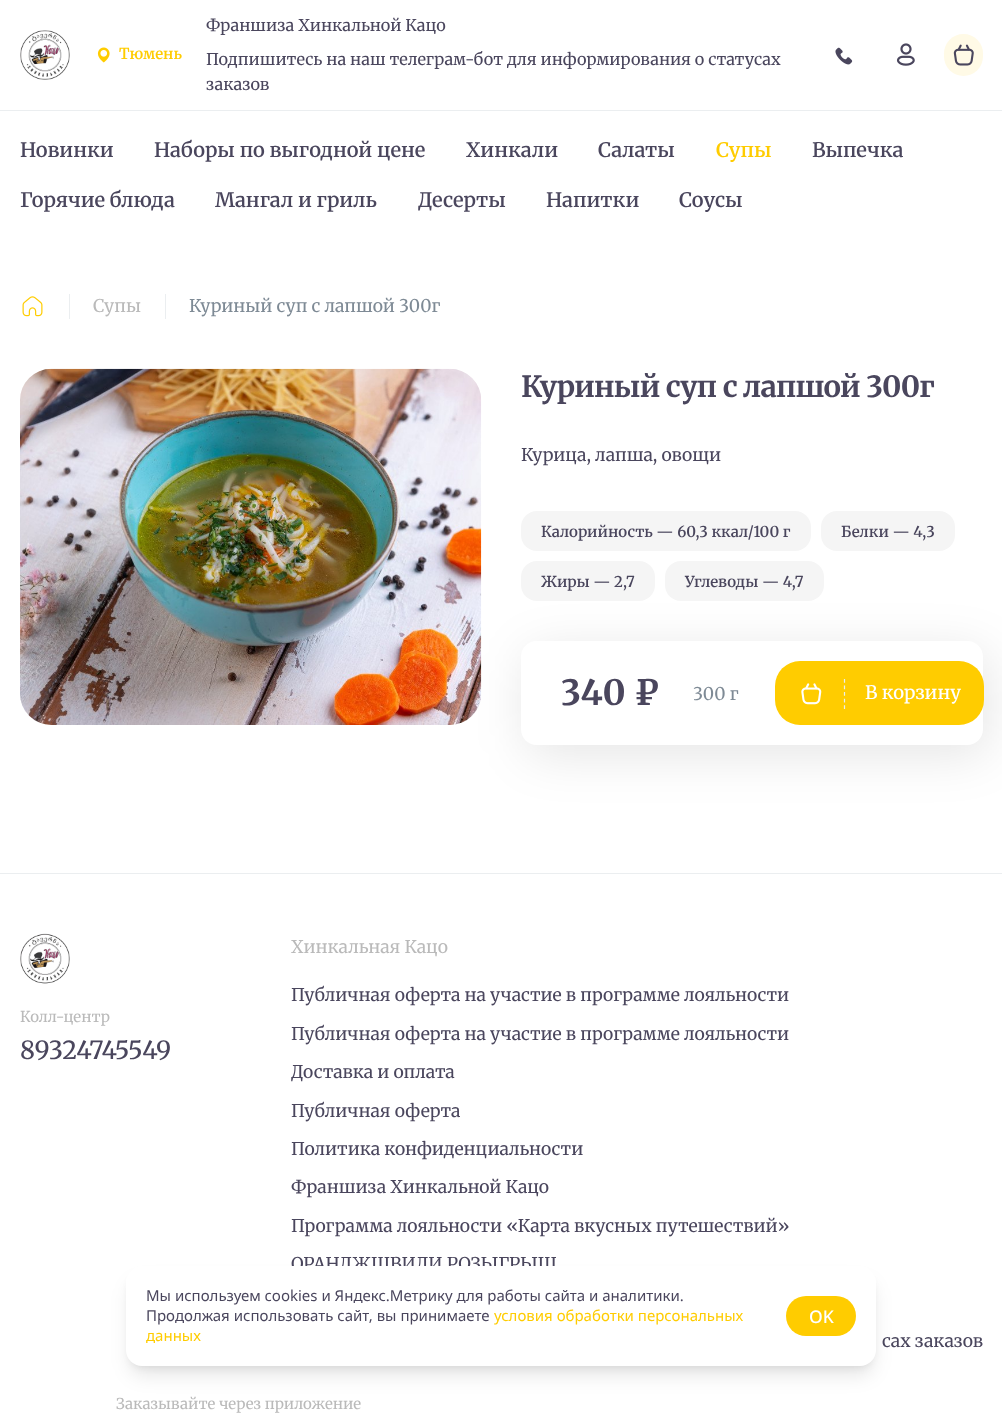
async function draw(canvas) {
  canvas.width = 1002
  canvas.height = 1426
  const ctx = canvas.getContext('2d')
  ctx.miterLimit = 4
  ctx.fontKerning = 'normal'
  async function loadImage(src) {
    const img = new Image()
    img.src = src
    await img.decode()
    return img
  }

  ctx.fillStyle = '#fff'
  ctx.fillRect(0, 0, 1002, 1426)
  ctx.fillStyle = '#ebeef0'
  ctx.fillRect(0, 110, 1002, 1)
  ctx.drawImage(await loadImage('image0.png'), 20, 30, 50, 50)
  ctx.drawImage(await loadImage('image1.png'), 97, 47, 13, 16)
  ctx.font = '600 15px Merriweather'
  ctx.fillStyle = '#fc0'
  ctx.fillText('Тюмень', 119, 59)
  ctx.font = '16.25px Merriweather'
  ctx.fillStyle = '#4a465d'
  ctx.fillText('Франшиза Хинкальной Кацо', 206, 31)
  ctx.fillText('Подпишитесь на наш телеграм-бот для информирования о статусах', 206, 65)
  ctx.fillText('заказов', 206, 90)
  ctx.drawImage(await loadImage('image2.png'), 835, 47, 18, 18)
  ctx.drawImage(await loadImage('image3.png'), 896, 43, 19, 23)
  ctx.fillStyle = '#fffae6'
  ctx.beginPath()
  ctx.roundRect(944, 34, 39, 42, 19.5)
  ctx.fill()
  ctx.drawImage(await loadImage('image4.png'), 953, 44, 21, 22)
  ctx.font = '600 20px Merriweather'
  ctx.fillStyle = '#4a465d'
  ctx.fillText('Новинки', 20, 157)
  ctx.fillText('Наборы по выгодной цене', 154, 157)
  ctx.fillText('Хинкали', 466, 157)
  ctx.fillText('Салаты', 598, 157)
  ctx.fillStyle = '#fc0'
  ctx.fillText('Супы', 716, 157)
  ctx.fillStyle = '#4a465d'
  ctx.fillText('Выпечка', 812, 157)
  ctx.fillText('Горячие блюда', 20, 207)
  ctx.fillText('Мангал и гриль', 215, 207)
  ctx.fillText('Десерты', 418, 207)
  ctx.fillText('Напитки', 546, 207)
  ctx.fillText('Соусы', 679, 207)
  ctx.drawImage(await loadImage('image5.png'), 22, 296, 21, 21)
  ctx.fillStyle = '#ebeef0'
  ctx.fillRect(69, 294, 1, 25)
  ctx.font = '17.5px Merriweather'
  ctx.fillStyle = '#bababa'
  ctx.fillText('Супы', 93, 312)
  ctx.fillStyle = '#ebeef0'
  ctx.fillRect(165, 294, 1, 25)
  ctx.fillStyle = '#7e8a95'
  ctx.fillText('Куриный суп с лапшой 300г', 189, 312)
  ctx.fillStyle = '#f5f5f5'
  ctx.beginPath()
  ctx.roundRect(521, 561, 134, 40, 16)
  ctx.fill()
  ctx.beginPath()
  ctx.roundRect(665, 561, 159, 40, 16)
  ctx.fill()
  ctx.save()
  ctx.beginPath()
  ctx.moveTo(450, 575)
  ctx.lineTo(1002, 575)
  ctx.lineTo(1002, 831)
  ctx.lineTo(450, 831)
  ctx.closePath()
  ctx.moveTo(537, 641)
  ctx.lineTo(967, 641)
  ctx.bezierCurveTo(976, 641, 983, 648, 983, 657)
  ctx.lineTo(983, 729)
  ctx.bezierCurveTo(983, 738, 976, 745, 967, 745)
  ctx.lineTo(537, 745)
  ctx.bezierCurveTo(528, 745, 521, 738, 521, 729)
  ctx.lineTo(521, 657)
  ctx.bezierCurveTo(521, 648, 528, 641, 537, 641)
  ctx.closePath()
  ctx.clip('evenodd')
  ctx.fillStyle = '#0000001a'
  ctx.filter = 'blur(25px)'
  ctx.beginPath()
  ctx.roundRect(526, 651, 462, 104, 16)
  ctx.fill()
  ctx.filter = 'none'
  ctx.restore()
  ctx.drawImage(await loadImage('image6.png'), 20, 368, 462, 357)
  ctx.letterSpacing = '-0.75px'
  ctx.font = 'bold 29.3px Merriweather'
  ctx.fillStyle = '#4a465d'
  ctx.fillText('Куриный суп с лапшой 300г', 521, 397)
  ctx.letterSpacing = '0px'
  ctx.font = '17.5px Merriweather'
  ctx.fillText('Курица, лапша, овощи', 521, 461)
  ctx.fillStyle = '#f5f5f5'
  ctx.beginPath()
  ctx.roundRect(521, 511, 290, 40, 16)
  ctx.fill()
  ctx.font = '600 15px Merriweather'
  ctx.fillStyle = '#4a465d'
  ctx.fillText('Калорийность — 60,3 ккал/100 г', 541, 537)
  ctx.fillStyle = '#f5f5f5'
  ctx.beginPath()
  ctx.roundRect(821, 511, 134, 40, 16)
  ctx.fill()
  ctx.fillStyle = '#4a465d'
  ctx.fillText('Белки — 4,3', 841, 537)
  ctx.fillText('Жиры — 2,7', 541, 587)
  ctx.fillText('Углеводы — 4,7', 685, 587)
  ctx.font = 'bold 35px Merriweather'
  ctx.fillText('340 ₽', 561, 705)
  ctx.font = '17.5px Merriweather'
  ctx.fillStyle = '#7e8a95'
  ctx.fillText('300 г', 693, 700)
  ctx.fillStyle = '#fc0'
  ctx.beginPath()
  ctx.roundRect(775, 661, 209, 64, 25)
  ctx.fill()
  ctx.drawImage(await loadImage('image7.png'), 801, 683, 21, 22)
  ctx.beginPath()
  ctx.moveTo(844.5, 679)
  ctx.lineTo(844.5, 709)
  ctx.strokeStyle = '#ebeef0'
  ctx.lineWidth = 1.2
  ctx.setLineDash([3.75, 2.81])
  ctx.stroke()
  ctx.font = '500 18.5px Merriweather'
  ctx.fillStyle = '#fff'
  ctx.fillText('В корзину', 865, 699)
  ctx.fillStyle = '#ebeef0'
  ctx.fillRect(0, 873, 1002, 1)
  ctx.drawImage(await loadImage('image8.png'), 20, 933, 50, 51)
  ctx.font = '15px Merriweather'
  ctx.fillStyle = '#bababa'
  ctx.fillText('Колл-центр', 20, 1022)
  ctx.font = '500 25px Merriweather'
  ctx.fillStyle = '#4a465d'
  ctx.fillText('89324745549', 20, 1059)
  ctx.font = '17.5px Merriweather'
  ctx.fillStyle = '#bababa'
  ctx.fillText('Хинкальная Кацо', 291, 953)
  ctx.fillStyle = '#4a465d'
  ctx.fillText('Публичная оферта на участие в программе лояльности', 291, 1001)
  ctx.fillText('Публичная оферта на участие в программе лояльности', 291, 1040)
  ctx.fillText('Доставка и оплата', 291, 1078)
  ctx.fillText('Публичная оферта', 291, 1117)
  ctx.fillText('Политика конфиденциальности', 291, 1155)
  ctx.fillText('Франшиза Хинкальной Кацо', 291, 1193)
  ctx.fillText('Программа лояльности «Карта вкусных путешествий»', 291, 1232)
  ctx.fillText('ОРАНДЖШВИЛИ РОЗЫГРЫШ', 291, 1270)
  ctx.fillText('сах заказов', 882, 1347)
  ctx.font = '15px Merriweather'
  ctx.fillStyle = '#bababa'
  ctx.fillText('Заказывайте через приложение', 116, 1409)
  ctx.fillStyle = '#0000001a'
  ctx.filter = 'blur(4px)'
  ctx.beginPath()
  ctx.roundRect(131, 1276, 740, 90, 11)
  ctx.fill()
  ctx.filter = 'none'
  ctx.filter = 'blur(9.5px)'
  ctx.beginPath()
  ctx.roundRect(130, 1283, 743, 92, 13)
  ctx.fill()
  ctx.filter = 'none'
  ctx.fillStyle = '#fff'
  ctx.beginPath()
  ctx.roundRect(126, 1266, 750, 100, 16)
  ctx.fill()
  ctx.font = '15px Noto Sans'
  ctx.fillStyle = '#4a465d'
  ctx.fillText('Мы используем cookies и Яндекс.Метрику для работы сайта и аналитики.', 146, 1301)
  ctx.fillText('Продолжая использовать сайт, вы принимаете', 146, 1321)
  ctx.fillStyle = '#fc0'
  ctx.fillText('условия обработки персональных', 494, 1321)
  ctx.fillText('данных', 146, 1341)
  ctx.beginPath()
  ctx.roundRect(786, 1296, 70, 40, 20)
  ctx.fill()
  ctx.font = '500 17.5px Noto Sans'
  ctx.fillStyle = '#fff'
  ctx.fillText('OK', 809, 1323)
}

draw(document.querySelector('canvas'))
